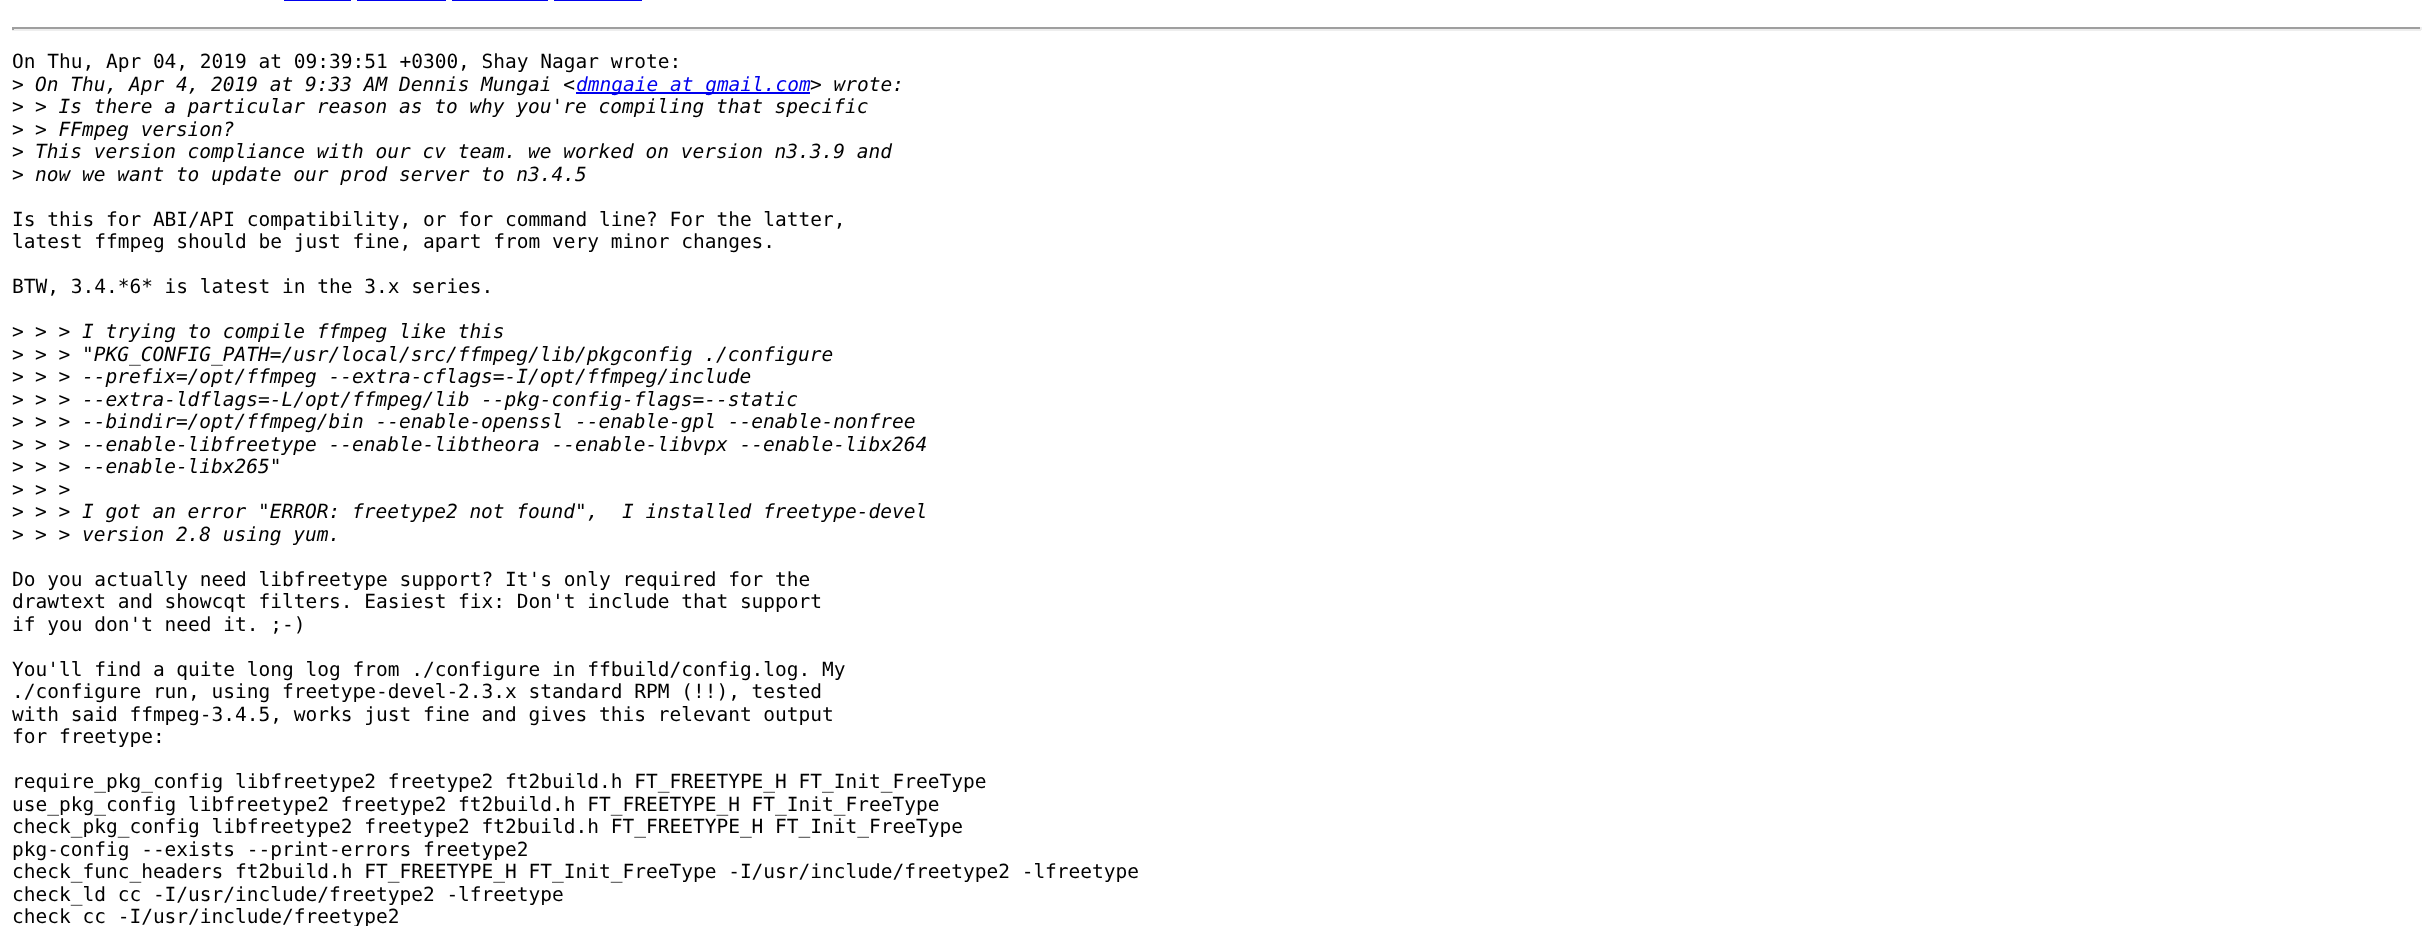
async function draw(canvas) {
  canvas.width = 2433
  canvas.height = 926
  const ctx = canvas.getContext('2d')
  ctx.miterLimit = 4
  ctx.fontKerning = 'normal'

  ctx.fillStyle = '#fff'
  ctx.fillRect(0, 0, 2433, 926)
  ctx.fillStyle = '#00e'
  ctx.fillRect(284, 0, 67, 1)
  ctx.fillRect(357, 0, 89, 1)
  ctx.fillRect(452, 0, 96, 1)
  ctx.fillRect(554, 0, 88, 1)
  ctx.fillStyle = '#9f9f9f'
  ctx.fillRect(12, 27, 2409, 2)
  ctx.fillStyle = '#eee'
  ctx.fillRect(2420, 27, 2, 3)
  ctx.fillRect(12, 29, 2409, 2)
  ctx.fillStyle = '#9f9f9f'
  ctx.fillRect(12, 27, 2, 3)
  ctx.font = '19.5px DejaVu Sans Mono'
  ctx.fillStyle = '#000'
  ctx.fillText('On Thu, Apr 04, 2019 at 09:39:51 +0300, Shay Nagar wrote:', 12, 68)
  ctx.fillText('>', 12, 91)
  ctx.font = 'italic 19.5px DejaVu Sans Mono'
  ctx.fillText('On Thu, Apr 4, 2019 at 9:33 AM Dennis Mungai <', 35, 91)
  ctx.fillStyle = '#00e'
  ctx.fillRect(576, 92, 234, 2)
  ctx.fillText('dmngaie at gmail.com', 576, 91)
  ctx.fillStyle = '#000'
  ctx.fillText('> wrote:', 810, 91)
  ctx.font = '19.5px DejaVu Sans Mono'
  ctx.fillText('>', 12, 113)
  ctx.font = 'italic 19.5px DejaVu Sans Mono'
  ctx.fillText('> Is there a particular reason as to why you\'re compiling that specific', 35, 113)
  ctx.font = '19.5px DejaVu Sans Mono'
  ctx.fillText('>', 12, 136)
  ctx.font = 'italic 19.5px DejaVu Sans Mono'
  ctx.fillText('> FFmpeg version?', 35, 136)
  ctx.font = '19.5px DejaVu Sans Mono'
  ctx.fillText('>', 12, 158)
  ctx.font = 'italic 19.5px DejaVu Sans Mono'
  ctx.fillText('This version compliance with our cv team. we worked on version n3.3.9 and', 35, 158)
  ctx.font = '19.5px DejaVu Sans Mono'
  ctx.fillText('>', 12, 181)
  ctx.font = 'italic 19.5px DejaVu Sans Mono'
  ctx.fillText('now we want to update our prod server to n3.4.5', 35, 181)
  ctx.font = '19.5px DejaVu Sans Mono'
  ctx.fillText('Is this for ABI/API compatibility, or for command line? For the latter,', 12, 226)
  ctx.fillText('latest ffmpeg should be just fine, apart from very minor changes.', 12, 248)
  ctx.fillText('BTW, 3.4.*6* is latest in the 3.x series.', 12, 293)
  ctx.fillText('>', 12, 338)
  ctx.font = 'italic 19.5px DejaVu Sans Mono'
  ctx.fillText('> > I trying to compile ffmpeg like this', 35, 338)
  ctx.font = '19.5px DejaVu Sans Mono'
  ctx.fillText('>', 12, 361)
  ctx.font = 'italic 19.5px DejaVu Sans Mono'
  ctx.fillText('> > "PKG_CONFIG_PATH=/usr/local/src/ffmpeg/lib/pkgconfig ./configure', 35, 361)
  ctx.font = '19.5px DejaVu Sans Mono'
  ctx.fillText('>', 12, 383)
  ctx.font = 'italic 19.5px DejaVu Sans Mono'
  ctx.fillText('> > --prefix=/opt/ffmpeg --extra-cflags=-I/opt/ffmpeg/include', 35, 383)
  ctx.font = '19.5px DejaVu Sans Mono'
  ctx.fillText('>', 12, 406)
  ctx.font = 'italic 19.5px DejaVu Sans Mono'
  ctx.fillText('> > --extra-ldflags=-L/opt/ffmpeg/lib --pkg-config-flags=--static', 35, 406)
  ctx.font = '19.5px DejaVu Sans Mono'
  ctx.fillText('>', 12, 428)
  ctx.font = 'italic 19.5px DejaVu Sans Mono'
  ctx.fillText('> > --bindir=/opt/ffmpeg/bin --enable-openssl --enable-gpl --enable-nonfree', 35, 428)
  ctx.font = '19.5px DejaVu Sans Mono'
  ctx.fillText('>', 12, 451)
  ctx.font = 'italic 19.5px DejaVu Sans Mono'
  ctx.fillText('> > --enable-libfreetype --enable-libtheora --enable-libvpx --enable-libx264', 35, 451)
  ctx.font = '19.5px DejaVu Sans Mono'
  ctx.fillText('>', 12, 473)
  ctx.font = 'italic 19.5px DejaVu Sans Mono'
  ctx.fillText('> > --enable-libx265"', 35, 473)
  ctx.font = '19.5px DejaVu Sans Mono'
  ctx.fillText('>', 12, 496)
  ctx.font = 'italic 19.5px DejaVu Sans Mono'
  ctx.fillText('> >', 35, 496)
  ctx.font = '19.5px DejaVu Sans Mono'
  ctx.fillText('>', 12, 518)
  ctx.font = 'italic 19.5px DejaVu Sans Mono'
  ctx.fillText('> > I got an error "ERROR: freetype2 not found",  I installed freetype-devel', 35, 518)
  ctx.font = '19.5px DejaVu Sans Mono'
  ctx.fillText('>', 12, 541)
  ctx.font = 'italic 19.5px DejaVu Sans Mono'
  ctx.fillText('> > version 2.8 using yum.', 35, 541)
  ctx.font = '19.5px DejaVu Sans Mono'
  ctx.fillText('Do you actually need libfreetype support? It\'s only required for the', 12, 586)
  ctx.fillText('drawtext and showcqt filters. Easiest fix: Don\'t include that support', 12, 608)
  ctx.fillText('if you don\'t need it. ;-)', 12, 631)
  ctx.fillText('You\'ll find a quite long log from ./configure in ffbuild/config.log. My', 12, 676)
  ctx.fillText('./configure run, using freetype-devel-2.3.x standard RPM (!!), tested', 12, 698)
  ctx.fillText('with said ffmpeg-3.4.5, works just fine and gives this relevant output', 12, 721)
  ctx.fillText('for freetype:', 12, 743)
  ctx.fillText('require_pkg_config libfreetype2 freetype2 ft2build.h FT_FREETYPE_H FT_Init_FreeType', 12, 788)
  ctx.fillText('use_pkg_config libfreetype2 freetype2 ft2build.h FT_FREETYPE_H FT_Init_FreeType', 12, 811)
  ctx.fillText('check_pkg_config libfreetype2 freetype2 ft2build.h FT_FREETYPE_H FT_Init_FreeType', 12, 833)
  ctx.fillText('pkg-config --exists --print-errors freetype2', 12, 856)
  ctx.fillText('check_func_headers ft2build.h FT_FREETYPE_H FT_Init_FreeType -I/usr/include/freetype2 -lfreetype', 12, 878)
  ctx.fillText('check_ld cc -I/usr/include/freetype2 -lfreetype', 12, 901)
  ctx.fillText('check_cc -I/usr/include/freetype2', 12, 923)
}

draw(document.querySelector('canvas'))
